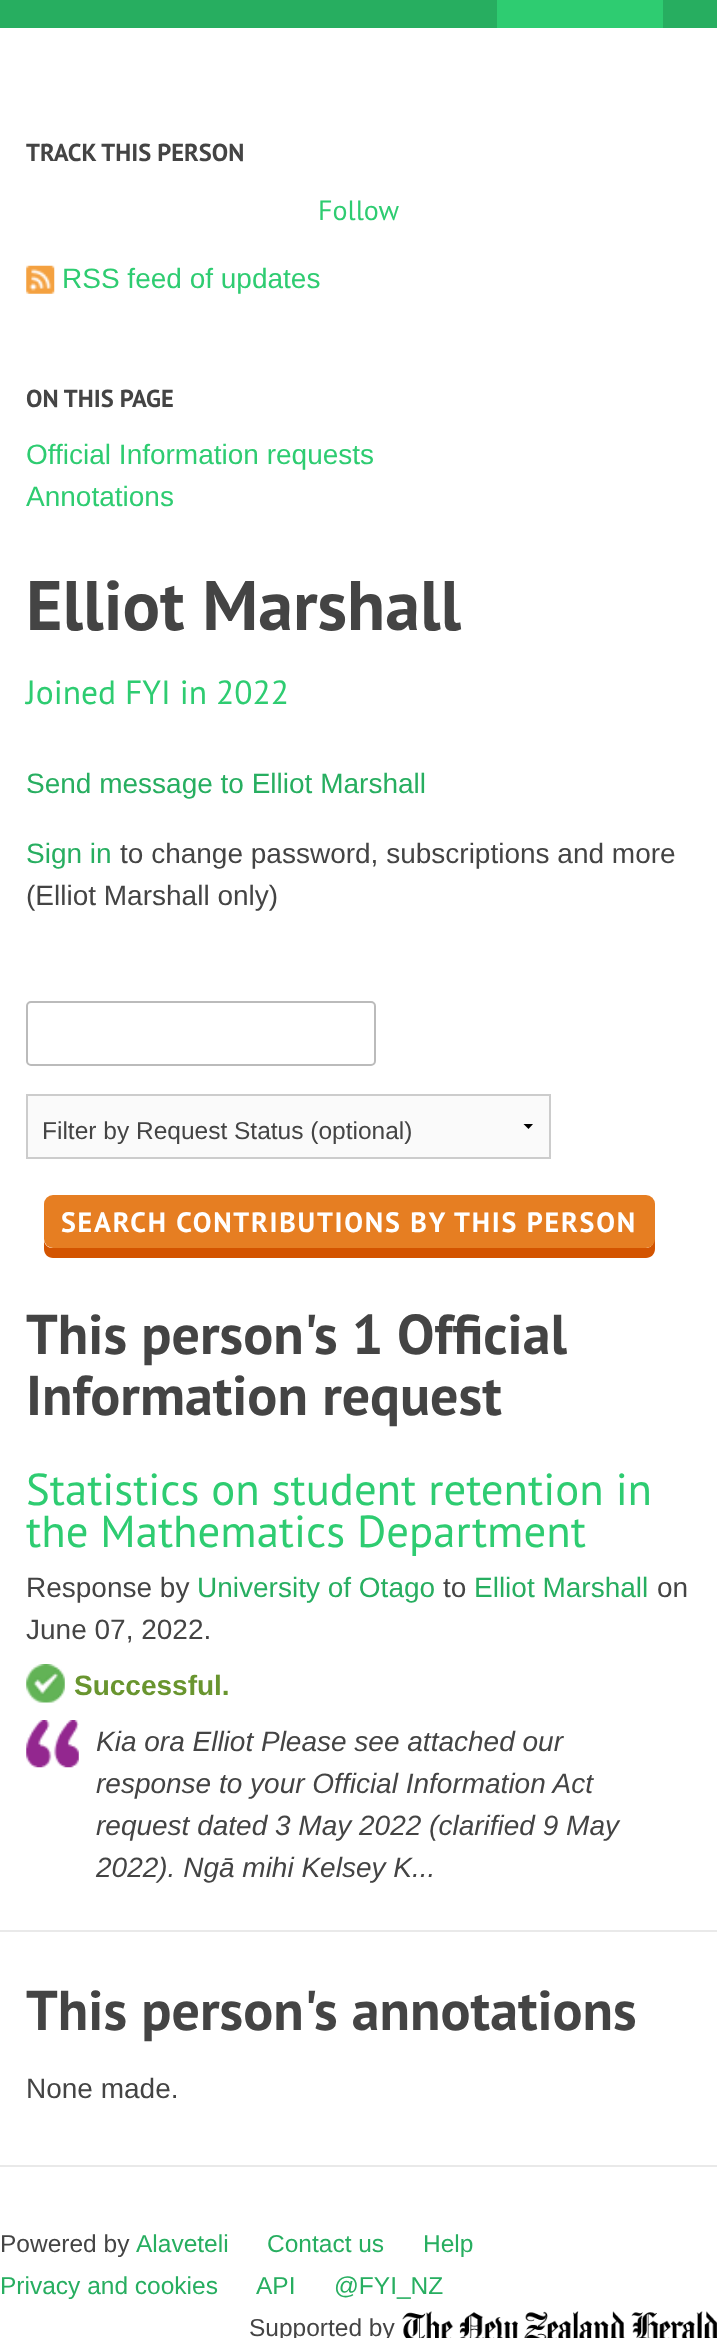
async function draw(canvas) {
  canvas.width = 717
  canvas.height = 2338
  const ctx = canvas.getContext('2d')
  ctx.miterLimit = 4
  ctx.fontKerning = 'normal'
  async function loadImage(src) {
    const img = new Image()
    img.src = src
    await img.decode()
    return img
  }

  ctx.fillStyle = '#fff'
  ctx.fillRect(0, 0, 717, 2338)
  ctx.fillStyle = '#27ae60'
  ctx.fillRect(0, 0, 717, 28)
  ctx.fillStyle = '#2ecc71'
  ctx.fillRect(497, 0, 166, 28)
  ctx.font = 'bold 24.5px PT Sans'
  ctx.fillStyle = '#444'
  ctx.fillText('TRACK THIS PERSON', 26, 161)
  ctx.font = '28px PT Sans'
  ctx.fillStyle = '#2ecc71'
  ctx.fillText('Follow', 318, 220)
  ctx.drawImage(await loadImage('image0.png'), 26, 265, 29, 29)
  ctx.font = '28px Liberation Sans'
  ctx.fillText('RSS feed of updates', 62, 288)
  ctx.font = 'bold 24.5px PT Sans'
  ctx.fillStyle = '#444'
  ctx.fillText('ON THIS PAGE', 26, 407)
  ctx.font = '28px Liberation Sans'
  ctx.fillStyle = '#2ecc71'
  ctx.fillText('Official Information requests', 26, 464)
  ctx.fillText('Annotations', 26, 506)
  ctx.font = 'bold 70px PT Sans'
  ctx.fillStyle = '#444'
  ctx.fillText('Elliot Marshall', 26, 630)
  ctx.font = '33.5px PT Sans'
  ctx.fillStyle = '#2ecc71'
  ctx.fillText('Joined FYI in 2022', 26, 704)
  ctx.font = '28px Liberation Sans'
  ctx.fillStyle = '#27ae60'
  ctx.fillText('Send message to Elliot Marshall', 26, 793)
  ctx.fillText('Sign in', 26, 863)
  ctx.fillStyle = '#444'
  ctx.fillText('to change password, subscriptions and more', 120, 863)
  ctx.fillText('(Elliot Marshall only)', 26, 905)
  ctx.beginPath()
  ctx.roundRect(27, 1002, 348, 63, 4)
  ctx.strokeStyle = '#bbb'
  ctx.lineWidth = 2
  ctx.stroke()
  ctx.fillStyle = '#fafafa'
  ctx.fillRect(28, 1096, 521, 61)
  ctx.save()
  ctx.beginPath()
  ctx.rect(523, 1124, 11, 5)
  ctx.clip()
  ctx.fillStyle = '#000'
  ctx.beginPath()
  ctx.moveTo(533.5, 1123.5)
  ctx.lineTo(528.5, 1129)
  ctx.lineTo(523, 1123.5)
  ctx.closePath()
  ctx.fill()
  ctx.restore()
  ctx.strokeStyle = '#ccc'
  ctx.strokeRect(27, 1095, 523, 63)
  ctx.font = '24.5px Liberation Sans'
  ctx.fillStyle = '#444'
  ctx.fillText('Filter by Request Status (optional)', 42, 1139)
  ctx.fillStyle = '#d35400'
  ctx.beginPath()
  ctx.moveTo(44, 1241)
  ctx.lineTo(44, 1249)
  ctx.bezierCurveTo(44, 1254, 48, 1258, 53, 1258)
  ctx.lineTo(646, 1258)
  ctx.bezierCurveTo(651, 1258, 655, 1254, 655, 1249)
  ctx.lineTo(655, 1215)
  ctx.lineTo(654, 1212)
  ctx.lineTo(654, 1239)
  ctx.bezierCurveTo(654, 1244, 651, 1248, 646, 1248)
  ctx.lineTo(52, 1248)
  ctx.bezierCurveTo(48, 1248, 45, 1245, 44, 1241)
  ctx.closePath()
  ctx.fill()
  ctx.fillStyle = '#e67e22'
  ctx.beginPath()
  ctx.roundRect(44, 1195, 611, 53, 9)
  ctx.fill()
  ctx.letterSpacing = '1.75px'
  ctx.font = 'bold 28px PT Sans'
  ctx.fillStyle = '#fff'
  ctx.fillText('SEARCH CONTRIBUTIONS BY THIS PERSON', 61, 1232)
  ctx.letterSpacing = '0px'
  ctx.font = 'bold 56px PT Sans'
  ctx.fillStyle = '#444'
  ctx.fillText('This person\'s 1 Official', 26, 1354)
  ctx.fillText('Information request', 26, 1415)
  ctx.fillStyle = '#e9e9e9'
  ctx.fillRect(0, 1930, 717, 2)
  ctx.font = '44.75px PT Sans'
  ctx.fillStyle = '#2ecc71'
  ctx.fillText('Statistics on student retention in', 26, 1505)
  ctx.fillText('the Mathematics Department', 26, 1547)
  ctx.font = '28px Liberation Sans'
  ctx.fillStyle = '#444'
  ctx.fillText('Response by', 26, 1597)
  ctx.fillStyle = '#27ae60'
  ctx.fillText('University of Otago', 197, 1597)
  ctx.fillStyle = '#444'
  ctx.fillText('to', 443, 1597)
  ctx.fillStyle = '#27ae60'
  ctx.fillText('Elliot Marshall', 474, 1597)
  ctx.fillStyle = '#444'
  ctx.fillText('on', 657, 1597)
  ctx.fillText('June 07, 2022.', 26, 1639)
  ctx.drawImage(await loadImage('image1.png'), 26, 1664, 39, 39)
  ctx.font = 'bold 28px Liberation Sans'
  ctx.fillStyle = '#69952f'
  ctx.fillText('Successful.', 74, 1695)
  ctx.drawImage(await loadImage('image2.png'), 26, 1720, 53, 48)
  ctx.font = 'italic 28px Liberation Sans'
  ctx.fillStyle = '#444'
  ctx.fillText('Kia ora Elliot Please see attached our', 96, 1751)
  ctx.fillText('response to your Official Information Act', 96, 1793)
  ctx.fillText('request dated 3 May 2022 (clarified 9 May', 96, 1835)
  ctx.fillText('2022). Ngā mihi Kelsey K...', 96, 1877)
  ctx.font = 'bold 56px PT Sans'
  ctx.fillText('This person\'s annotations', 26, 2030)
  ctx.font = '28px Liberation Sans'
  ctx.fillText('None made.', 26, 2098)
  ctx.fillStyle = '#e9e9e9'
  ctx.fillRect(0, 2165, 717, 2)
  ctx.font = '24.5px Liberation Sans'
  ctx.fillStyle = '#444'
  ctx.fillText('Powered by', 0, 2252)
  ctx.fillStyle = '#27ae60'
  ctx.fillText('Alaveteli', 136, 2252)
  ctx.fillText('Contact us', 267, 2252)
  ctx.fillText('Help', 423, 2252)
  ctx.fillText('Privacy and cookies', 0, 2294)
  ctx.fillText('API', 256, 2294)
  ctx.fillText('@FYI_NZ', 334, 2294)
  ctx.fillStyle = '#444'
  ctx.fillText('Supported by', 249, 2336)
  ctx.drawImage(await loadImage('image3.png'), 402, 2311, 315, 27)
}

draw(document.querySelector('canvas'))
